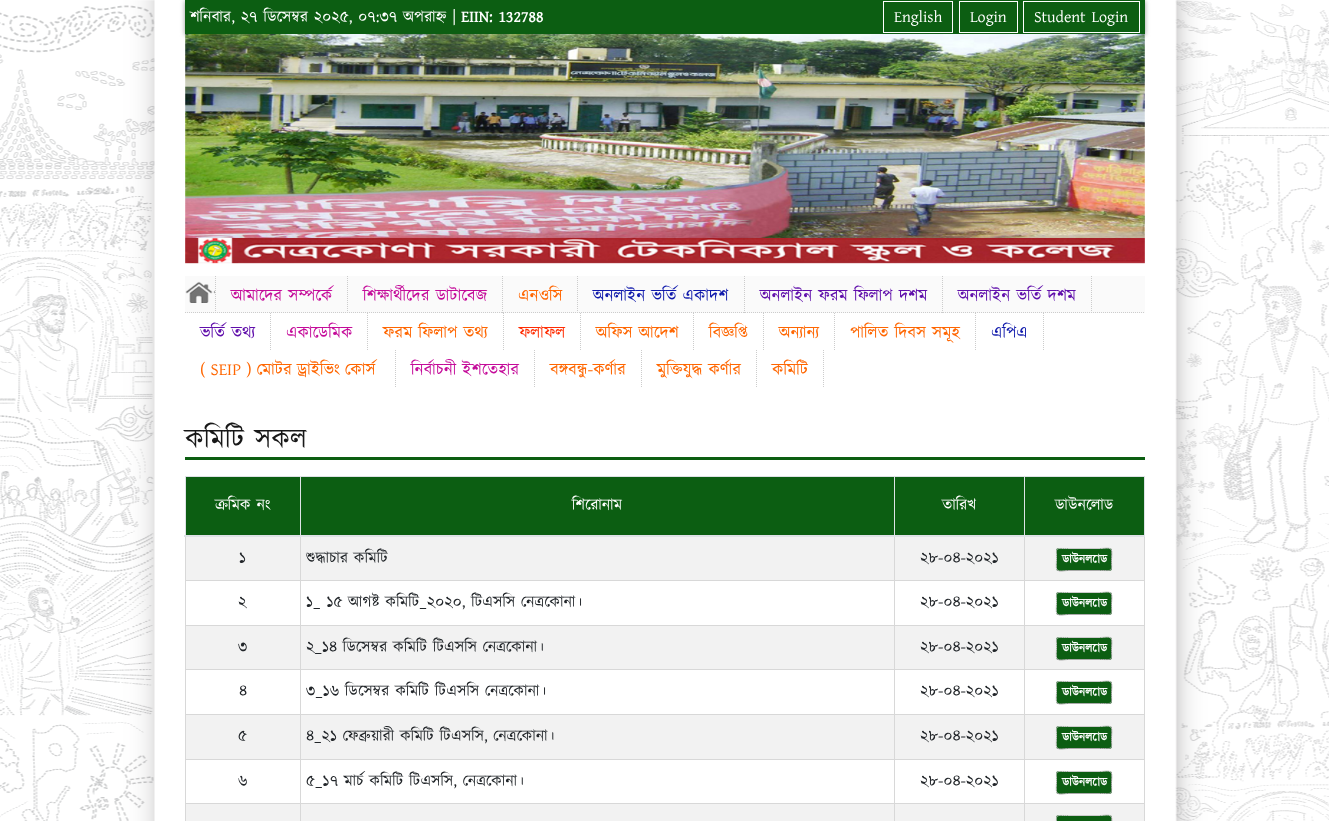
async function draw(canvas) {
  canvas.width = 1329
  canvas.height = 821
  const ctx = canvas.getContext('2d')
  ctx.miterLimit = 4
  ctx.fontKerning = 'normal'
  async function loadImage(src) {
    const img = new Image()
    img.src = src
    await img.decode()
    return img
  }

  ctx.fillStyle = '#fff'
  ctx.fillRect(0, 0, 1329, 821)
  ctx.drawImage(await loadImage('image0.png'), 0, 0, 1329, 821)
  ctx.fillStyle = '#999'
  ctx.filter = 'blur(2.5px)'
  ctx.beginPath()
  ctx.rect(185, 1, 960, 34)
  ctx.fill()
  ctx.filter = 'none'
  ctx.fillStyle = '#0c5e12'
  ctx.fillRect(185, 0, 960, 34)
  ctx.font = '16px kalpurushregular'
  ctx.fillStyle = '#fff'
  ctx.fillText('শনিবার, ২৭ ডিসেম্বর ২০২৫, ০৭:৩৭ অপরাহ্ন |', 190, 22)
  ctx.font = 'bold 16px kalpurushregular'
  ctx.fillText('EIIN: 132788', 461, 22)
  ctx.strokeStyle = '#fff'
  ctx.strokeRect(883.5, 1.5, 69, 31)
  ctx.font = '16px kalpurushregular'
  ctx.fillText('English', 894, 22)
  ctx.strokeRect(959.5, 1.5, 58, 31)
  ctx.fillText('Login', 970, 22)
  ctx.strokeRect(1023.5, 1.5, 116, 31)
  ctx.fillText('Student Login', 1034, 22)
  ctx.drawImage(await loadImage('image1.png'), 185, 34, 960, 230)
  ctx.fillStyle = '#fafafa'
  ctx.fillRect(185, 276, 960, 37)
  ctx.beginPath()
  ctx.moveTo(185, 312.5)
  ctx.lineTo(1145, 312.5)
  ctx.strokeStyle = '#ccc'
  ctx.setLineDash([1, 1])
  ctx.stroke()
  ctx.beginPath()
  ctx.moveTo(215.5, 276)
  ctx.lineTo(215.5, 313)
  ctx.stroke()
  ctx.drawImage(await loadImage('image2.png'), 185, 281, 30, 22)
  ctx.beginPath()
  ctx.moveTo(347.5, 276)
  ctx.lineTo(347.5, 313)
  ctx.stroke()
  ctx.font = '17px kalpurushregular'
  ctx.fillStyle = '#c40a99'
  ctx.fillText('আমাদের সম্পর্কে', 231, 301)
  ctx.beginPath()
  ctx.moveTo(502.5, 276)
  ctx.lineTo(502.5, 313)
  ctx.stroke()
  ctx.fillText('শিক্ষার্থীদের ডাটাবেজ', 363, 301)
  ctx.beginPath()
  ctx.moveTo(577.5, 276)
  ctx.lineTo(577.5, 313)
  ctx.stroke()
  ctx.fillStyle = '#f60'
  ctx.fillText('এনওসি', 518, 301)
  ctx.beginPath()
  ctx.moveTo(744.5, 276)
  ctx.lineTo(744.5, 313)
  ctx.stroke()
  ctx.fillStyle = '#0f19ab'
  ctx.fillText('অনলাইন ভর্তি একাদশ', 593, 301)
  ctx.beginPath()
  ctx.moveTo(942.5, 276)
  ctx.lineTo(942.5, 313)
  ctx.stroke()
  ctx.fillStyle = '#600fab'
  ctx.fillText('অনলাইন ফরম ফিলাপ দশম', 760, 301)
  ctx.beginPath()
  ctx.moveTo(1091.5, 276)
  ctx.lineTo(1091.5, 313)
  ctx.stroke()
  ctx.fillText('অনলাইন ভর্তি দশম', 958, 301)
  ctx.beginPath()
  ctx.moveTo(270.5, 313)
  ctx.lineTo(270.5, 350)
  ctx.stroke()
  ctx.fillText('ভর্তি তথ্য', 200, 338)
  ctx.beginPath()
  ctx.moveTo(367.5, 313)
  ctx.lineTo(367.5, 350)
  ctx.stroke()
  ctx.fillStyle = '#c40a99'
  ctx.fillText('একাডেমিক', 286, 338)
  ctx.beginPath()
  ctx.moveTo(503.5, 313)
  ctx.lineTo(503.5, 350)
  ctx.stroke()
  ctx.fillStyle = '#f60'
  ctx.fillText('ফরম ফিলাপ তথ্য', 383, 338)
  ctx.beginPath()
  ctx.moveTo(580.5, 313)
  ctx.lineTo(580.5, 350)
  ctx.stroke()
  ctx.fillStyle = '#ff2d03'
  ctx.fillText('ফলাফল', 519, 338)
  ctx.beginPath()
  ctx.moveTo(693.5, 313)
  ctx.lineTo(693.5, 350)
  ctx.stroke()
  ctx.fillStyle = '#f60'
  ctx.fillText('অফিস আদেশ', 596, 338)
  ctx.beginPath()
  ctx.moveTo(763.5, 313)
  ctx.lineTo(763.5, 350)
  ctx.stroke()
  ctx.fillText('বিজ্ঞপ্তি', 709, 338)
  ctx.beginPath()
  ctx.moveTo(834.5, 313)
  ctx.lineTo(834.5, 350)
  ctx.stroke()
  ctx.fillText('অন্যান্য', 779, 338)
  ctx.beginPath()
  ctx.moveTo(975.5, 313)
  ctx.lineTo(975.5, 350)
  ctx.stroke()
  ctx.fillText('পালিত দিবস সমূহ', 850, 338)
  ctx.beginPath()
  ctx.moveTo(1043.5, 313)
  ctx.lineTo(1043.5, 350)
  ctx.stroke()
  ctx.fillStyle = '#0f19ab'
  ctx.fillText('এপিএ', 991, 338)
  ctx.beginPath()
  ctx.moveTo(395.5, 350)
  ctx.lineTo(395.5, 387)
  ctx.stroke()
  ctx.wordSpacing = '-1px'
  ctx.fillStyle = '#f60'
  ctx.fillText('( SEIP ) মোটর ড্রাইভিং কোর্স', 200, 375)
  ctx.beginPath()
  ctx.moveTo(534.5, 350)
  ctx.lineTo(534.5, 387)
  ctx.stroke()
  ctx.wordSpacing = '0px'
  ctx.fillStyle = '#c40a99'
  ctx.fillText('নির্বাচনী ইশতেহার', 411, 375)
  ctx.beginPath()
  ctx.moveTo(641.5, 350)
  ctx.lineTo(641.5, 387)
  ctx.stroke()
  ctx.fillStyle = '#f60'
  ctx.fillText('বঙ্গবন্ধু-কর্ণার', 550, 375)
  ctx.beginPath()
  ctx.moveTo(756.5, 350)
  ctx.lineTo(756.5, 387)
  ctx.stroke()
  ctx.fillText('মুক্তিযুদ্ধ কর্ণার', 657, 375)
  ctx.beginPath()
  ctx.moveTo(823.5, 350)
  ctx.lineTo(823.5, 387)
  ctx.stroke()
  ctx.fillText('কমিটি', 772, 375)
  ctx.fillStyle = '#0c5e12'
  ctx.fillRect(185, 457, 960, 3)
  ctx.font = '28px kalpurushregular'
  ctx.fillStyle = '#181818'
  ctx.fillText('কমিটি সকল', 185, 448)
  ctx.fillStyle = '#dee2e6'
  ctx.fillRect(185, 476, 960, 1)
  ctx.fillStyle = '#0c5e12'
  ctx.fillRect(186, 477, 958, 58)
  ctx.fillStyle = '#d8d8d8'
  ctx.fillRect(1024, 580, 121, 1)
  ctx.fillRect(1024, 625, 121, 1)
  ctx.fillStyle = '#f2f2f2'
  ctx.fillRect(186, 626, 958, 43)
  ctx.fillStyle = '#d8d8d8'
  ctx.fillRect(1024, 669, 121, 1)
  ctx.fillRect(1024, 714, 121, 1)
  ctx.fillStyle = '#f2f2f2'
  ctx.fillRect(186, 715, 958, 44)
  ctx.fillStyle = '#d8d8d8'
  ctx.fillRect(1024, 759, 121, 1)
  ctx.fillRect(1024, 803, 121, 1)
  ctx.fillStyle = '#f2f2f2'
  ctx.fillRect(186, 804, 958, 17)
  ctx.fillStyle = '#d8d8d8'
  ctx.fillRect(1024, 803, 1, 18)
  ctx.fillRect(894, 803, 131, 1)
  ctx.fillRect(1024, 759, 1, 45)
  ctx.fillRect(894, 759, 131, 1)
  ctx.fillRect(1024, 714, 1, 46)
  ctx.fillRect(894, 714, 131, 1)
  ctx.fillRect(1024, 669, 1, 46)
  ctx.fillRect(894, 669, 131, 1)
  ctx.fillRect(1024, 625, 1, 45)
  ctx.fillRect(894, 625, 131, 1)
  ctx.fillRect(1024, 580, 1, 46)
  ctx.fillRect(894, 580, 131, 1)
  ctx.fillRect(894, 803, 1, 18)
  ctx.fillRect(300, 803, 595, 1)
  ctx.fillRect(894, 759, 1, 45)
  ctx.fillRect(300, 759, 595, 1)
  ctx.fillRect(894, 714, 1, 46)
  ctx.fillRect(300, 714, 595, 1)
  ctx.fillRect(894, 669, 1, 46)
  ctx.fillRect(300, 669, 595, 1)
  ctx.fillRect(894, 625, 1, 45)
  ctx.fillRect(300, 625, 595, 1)
  ctx.fillRect(894, 580, 1, 46)
  ctx.fillRect(300, 580, 595, 1)
  ctx.fillRect(300, 803, 1, 18)
  ctx.fillRect(185, 803, 116, 1)
  ctx.fillRect(300, 759, 1, 45)
  ctx.fillRect(185, 759, 116, 1)
  ctx.fillRect(300, 714, 1, 46)
  ctx.fillRect(185, 714, 116, 1)
  ctx.fillRect(300, 669, 1, 46)
  ctx.fillRect(185, 669, 116, 1)
  ctx.fillRect(300, 625, 1, 45)
  ctx.fillRect(185, 625, 116, 1)
  ctx.fillRect(300, 580, 1, 46)
  ctx.fillRect(185, 580, 116, 1)
  ctx.fillRect(185, 803, 1, 18)
  ctx.fillRect(185, 759, 1, 45)
  ctx.fillRect(185, 714, 1, 46)
  ctx.fillRect(185, 669, 1, 46)
  ctx.fillRect(185, 625, 1, 45)
  ctx.fillRect(185, 535, 1, 91)
  ctx.fillStyle = '#dee2e6'
  ctx.fillRect(185, 476, 1, 60)
  ctx.font = '16px kalpurushregular'
  ctx.fillStyle = '#fff'
  ctx.fillText('ক্রমিক নং', 215, 510)
  ctx.fillStyle = '#f2f2f2'
  ctx.fillRect(186, 537, 958, 43)
  ctx.fillStyle = '#d8d8d8'
  ctx.fillRect(300, 535, 1, 46)
  ctx.fillStyle = '#dee2e6'
  ctx.fillRect(300, 476, 1, 60)
  ctx.fillStyle = '#fff'
  ctx.fillText('শিরোনাম', 572, 510)
  ctx.fillStyle = '#d8d8d8'
  ctx.fillRect(894, 535, 1, 46)
  ctx.fillStyle = '#dee2e6'
  ctx.fillRect(894, 476, 1, 60)
  ctx.fillStyle = '#fff'
  ctx.fillText('তারিখ', 942, 510)
  ctx.fillStyle = '#d8d8d8'
  ctx.fillRect(1144, 803, 1, 18)
  ctx.fillRect(1144, 759, 1, 45)
  ctx.fillRect(1144, 714, 1, 46)
  ctx.fillRect(1144, 669, 1, 46)
  ctx.fillRect(1144, 625, 1, 45)
  ctx.fillRect(1144, 535, 1, 91)
  ctx.fillStyle = '#dee2e6'
  ctx.fillRect(1144, 476, 1, 60)
  ctx.fillStyle = '#d8d8d8'
  ctx.fillRect(1024, 535, 1, 46)
  ctx.fillStyle = '#dee2e6'
  ctx.fillRect(1024, 476, 1, 60)
  ctx.fillRect(184, 535, 961, 2)
  ctx.fillStyle = '#fff'
  ctx.fillText('ডাউনলোড', 1055, 510)
  ctx.fillStyle = '#212529'
  ctx.fillText('১', 239, 563)
  ctx.fillText('শুদ্ধাচার কমিটি', 306, 563)
  ctx.fillText('২৮-০৪-২০২১', 920, 563)
  ctx.fillStyle = '#0c5e12'
  ctx.beginPath()
  ctx.roundRect(1056, 548, 56, 23, 3)
  ctx.fill()
  ctx.beginPath()
  ctx.moveTo(1111, 549)
  ctx.bezierCurveTo(1112.5, 551, 1111.5, 557.5, 1111.5, 559.5)
  ctx.bezierCurveTo(1111.5, 572, 1113.5, 570.5, 1100.5, 570.5)
  ctx.lineTo(1067.5, 570.5)
  ctx.bezierCurveTo(1064, 570.5, 1059.5, 572, 1057, 570)
  ctx.strokeStyle = '#aaa'
  ctx.setLineDash([])
  ctx.stroke()
  ctx.beginPath()
  ctx.moveTo(1057, 570)
  ctx.bezierCurveTo(1055.5, 568, 1056.5, 561.5, 1056.5, 559.5)
  ctx.bezierCurveTo(1056.5, 547, 1054.5, 548.5, 1067.5, 548.5)
  ctx.lineTo(1100.5, 548.5)
  ctx.bezierCurveTo(1104, 548.5, 1108.5, 547, 1111, 549)
  ctx.strokeStyle = '#ccc'
  ctx.stroke()
  ctx.font = 'bold 12px kalpurushregular'
  ctx.fillStyle = '#fff'
  ctx.fillText('ডাউনলোড', 1062, 563)
  ctx.font = '16px kalpurushregular'
  ctx.fillStyle = '#212529'
  ctx.fillText('২', 238, 607)
  ctx.fillText('১_ ১৫ আগষ্ট কমিটি_২০২০, টিএসসি নেত্রকোনা।', 306, 607)
  ctx.fillText('২৮-০৪-২০২১', 920, 607)
  ctx.fillStyle = '#0c5e12'
  ctx.beginPath()
  ctx.roundRect(1056, 592, 56, 23, 3)
  ctx.fill()
  ctx.beginPath()
  ctx.moveTo(1111, 593)
  ctx.bezierCurveTo(1112.5, 595, 1111.5, 601.5, 1111.5, 603.5)
  ctx.bezierCurveTo(1111.5, 616, 1113.5, 614.5, 1100.5, 614.5)
  ctx.lineTo(1067.5, 614.5)
  ctx.bezierCurveTo(1064, 614.5, 1059.5, 616, 1057, 614)
  ctx.strokeStyle = '#aaa'
  ctx.stroke()
  ctx.beginPath()
  ctx.moveTo(1057, 614)
  ctx.bezierCurveTo(1055.5, 612, 1056.5, 605.5, 1056.5, 603.5)
  ctx.bezierCurveTo(1056.5, 591, 1054.5, 592.5, 1067.5, 592.5)
  ctx.lineTo(1100.5, 592.5)
  ctx.bezierCurveTo(1104, 592.5, 1108.5, 591, 1111, 593)
  ctx.strokeStyle = '#ccc'
  ctx.stroke()
  ctx.font = 'bold 12px kalpurushregular'
  ctx.fillStyle = '#fff'
  ctx.fillText('ডাউনলোড', 1062, 607)
  ctx.font = '16px kalpurushregular'
  ctx.fillStyle = '#212529'
  ctx.fillText('৩', 238, 652)
  ctx.fillText('২_১৪ ডিসেম্বর কমিটি টিএসসি নেত্রকোনা।', 306, 652)
  ctx.fillText('২৮-০৪-২০২১', 920, 652)
  ctx.fillStyle = '#0c5e12'
  ctx.beginPath()
  ctx.roundRect(1056, 637, 56, 23, 3)
  ctx.fill()
  ctx.beginPath()
  ctx.moveTo(1111, 638)
  ctx.bezierCurveTo(1112.5, 640, 1111.5, 646.5, 1111.5, 648.5)
  ctx.bezierCurveTo(1111.5, 661, 1113.5, 659.5, 1100.5, 659.5)
  ctx.lineTo(1067.5, 659.5)
  ctx.bezierCurveTo(1064, 659.5, 1059.5, 661, 1057, 659)
  ctx.strokeStyle = '#aaa'
  ctx.stroke()
  ctx.beginPath()
  ctx.moveTo(1057, 659)
  ctx.bezierCurveTo(1055.5, 657, 1056.5, 650.5, 1056.5, 648.5)
  ctx.bezierCurveTo(1056.5, 636, 1054.5, 637.5, 1067.5, 637.5)
  ctx.lineTo(1100.5, 637.5)
  ctx.bezierCurveTo(1104, 637.5, 1108.5, 636, 1111, 638)
  ctx.strokeStyle = '#ccc'
  ctx.stroke()
  ctx.font = 'bold 12px kalpurushregular'
  ctx.fillStyle = '#fff'
  ctx.fillText('ডাউনলোড', 1062, 652)
  ctx.font = '16px kalpurushregular'
  ctx.fillStyle = '#212529'
  ctx.fillText('৪', 239, 696)
  ctx.fillText('৩_১৬ ডিসেম্বর কমিটি টিএসসি নেত্রকোনা।', 306, 696)
  ctx.fillText('২৮-০৪-২০২১', 920, 696)
  ctx.fillStyle = '#0c5e12'
  ctx.beginPath()
  ctx.roundRect(1056, 681, 56, 23, 3)
  ctx.fill()
  ctx.beginPath()
  ctx.moveTo(1111, 682)
  ctx.bezierCurveTo(1112.5, 684, 1111.5, 690.5, 1111.5, 692.5)
  ctx.bezierCurveTo(1111.5, 705, 1113.5, 703.5, 1100.5, 703.5)
  ctx.lineTo(1067.5, 703.5)
  ctx.bezierCurveTo(1064, 703.5, 1059.5, 705, 1057, 703)
  ctx.strokeStyle = '#aaa'
  ctx.stroke()
  ctx.beginPath()
  ctx.moveTo(1057, 703)
  ctx.bezierCurveTo(1055.5, 701, 1056.5, 694.5, 1056.5, 692.5)
  ctx.bezierCurveTo(1056.5, 680, 1054.5, 681.5, 1067.5, 681.5)
  ctx.lineTo(1100.5, 681.5)
  ctx.bezierCurveTo(1104, 681.5, 1108.5, 680, 1111, 682)
  ctx.strokeStyle = '#ccc'
  ctx.stroke()
  ctx.font = 'bold 12px kalpurushregular'
  ctx.fillStyle = '#fff'
  ctx.fillText('ডাউনলোড', 1062, 696)
  ctx.font = '16px kalpurushregular'
  ctx.fillStyle = '#212529'
  ctx.fillText('৫', 238, 741)
  ctx.fillText('৪_২১ ফেব্রুয়ারী কমিটি টিএসসি, নেত্রকোনা।', 306, 741)
  ctx.fillText('২৮-০৪-২০২১', 920, 741)
  ctx.fillStyle = '#0c5e12'
  ctx.beginPath()
  ctx.roundRect(1056, 726, 56, 23, 3)
  ctx.fill()
  ctx.beginPath()
  ctx.moveTo(1111, 727)
  ctx.bezierCurveTo(1112.5, 729, 1111.5, 735.5, 1111.5, 737.5)
  ctx.bezierCurveTo(1111.5, 750, 1113.5, 748.5, 1100.5, 748.5)
  ctx.lineTo(1067.5, 748.5)
  ctx.bezierCurveTo(1064, 748.5, 1059.5, 750, 1057, 748)
  ctx.strokeStyle = '#aaa'
  ctx.stroke()
  ctx.beginPath()
  ctx.moveTo(1057, 748)
  ctx.bezierCurveTo(1055.5, 746, 1056.5, 739.5, 1056.5, 737.5)
  ctx.bezierCurveTo(1056.5, 725, 1054.5, 726.5, 1067.5, 726.5)
  ctx.lineTo(1100.5, 726.5)
  ctx.bezierCurveTo(1104, 726.5, 1108.5, 725, 1111, 727)
  ctx.strokeStyle = '#ccc'
  ctx.stroke()
  ctx.font = 'bold 12px kalpurushregular'
  ctx.fillStyle = '#fff'
  ctx.fillText('ডাউনলোড', 1062, 741)
  ctx.font = '16px kalpurushregular'
  ctx.fillStyle = '#212529'
  ctx.fillText('৬', 238, 786)
  ctx.fillText('৫_১৭ মার্চ কমিটি টিএসসি, নেত্রকোনা।', 306, 786)
  ctx.fillText('২৮-০৪-২০২১', 920, 786)
  ctx.fillStyle = '#0c5e12'
  ctx.beginPath()
  ctx.roundRect(1056, 771, 56, 23, 3)
  ctx.fill()
  ctx.beginPath()
  ctx.moveTo(1111, 772)
  ctx.bezierCurveTo(1112.5, 774, 1111.5, 780.5, 1111.5, 782.5)
  ctx.bezierCurveTo(1111.5, 795, 1113.5, 793.5, 1100.5, 793.5)
  ctx.lineTo(1067.5, 793.5)
  ctx.bezierCurveTo(1064, 793.5, 1059.5, 795, 1057, 793)
  ctx.strokeStyle = '#aaa'
  ctx.stroke()
  ctx.beginPath()
  ctx.moveTo(1057, 793)
  ctx.bezierCurveTo(1055.5, 791, 1056.5, 784.5, 1056.5, 782.5)
  ctx.bezierCurveTo(1056.5, 770, 1054.5, 771.5, 1067.5, 771.5)
  ctx.lineTo(1100.5, 771.5)
  ctx.bezierCurveTo(1104, 771.5, 1108.5, 770, 1111, 772)
  ctx.strokeStyle = '#ccc'
  ctx.stroke()
  ctx.font = 'bold 12px kalpurushregular'
  ctx.fillStyle = '#fff'
  ctx.fillText('ডাউনলোড', 1062, 786)
  ctx.fillStyle = '#0c5e12'
  ctx.beginPath()
  ctx.roundRect(1056, 815, 56, 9, 3)
  ctx.fill()
  ctx.beginPath()
  ctx.moveTo(1111, 816)
  ctx.bezierCurveTo(1112.5, 818, 1111.5, 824.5, 1111.5, 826.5)
  ctx.bezierCurveTo(1111.5, 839, 1113.5, 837.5, 1100.5, 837.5)
  ctx.lineTo(1067.5, 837.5)
  ctx.bezierCurveTo(1064, 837.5, 1059.5, 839, 1057, 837)
  ctx.strokeStyle = '#aaa'
  ctx.stroke()
  ctx.beginPath()
  ctx.moveTo(1057, 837)
  ctx.bezierCurveTo(1055.5, 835, 1056.5, 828.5, 1056.5, 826.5)
  ctx.bezierCurveTo(1056.5, 814, 1054.5, 815.5, 1067.5, 815.5)
  ctx.lineTo(1100.5, 815.5)
  ctx.bezierCurveTo(1104, 815.5, 1108.5, 814, 1111, 816)
  ctx.strokeStyle = '#ccc'
  ctx.stroke()
}

draw(document.querySelector('canvas'))
